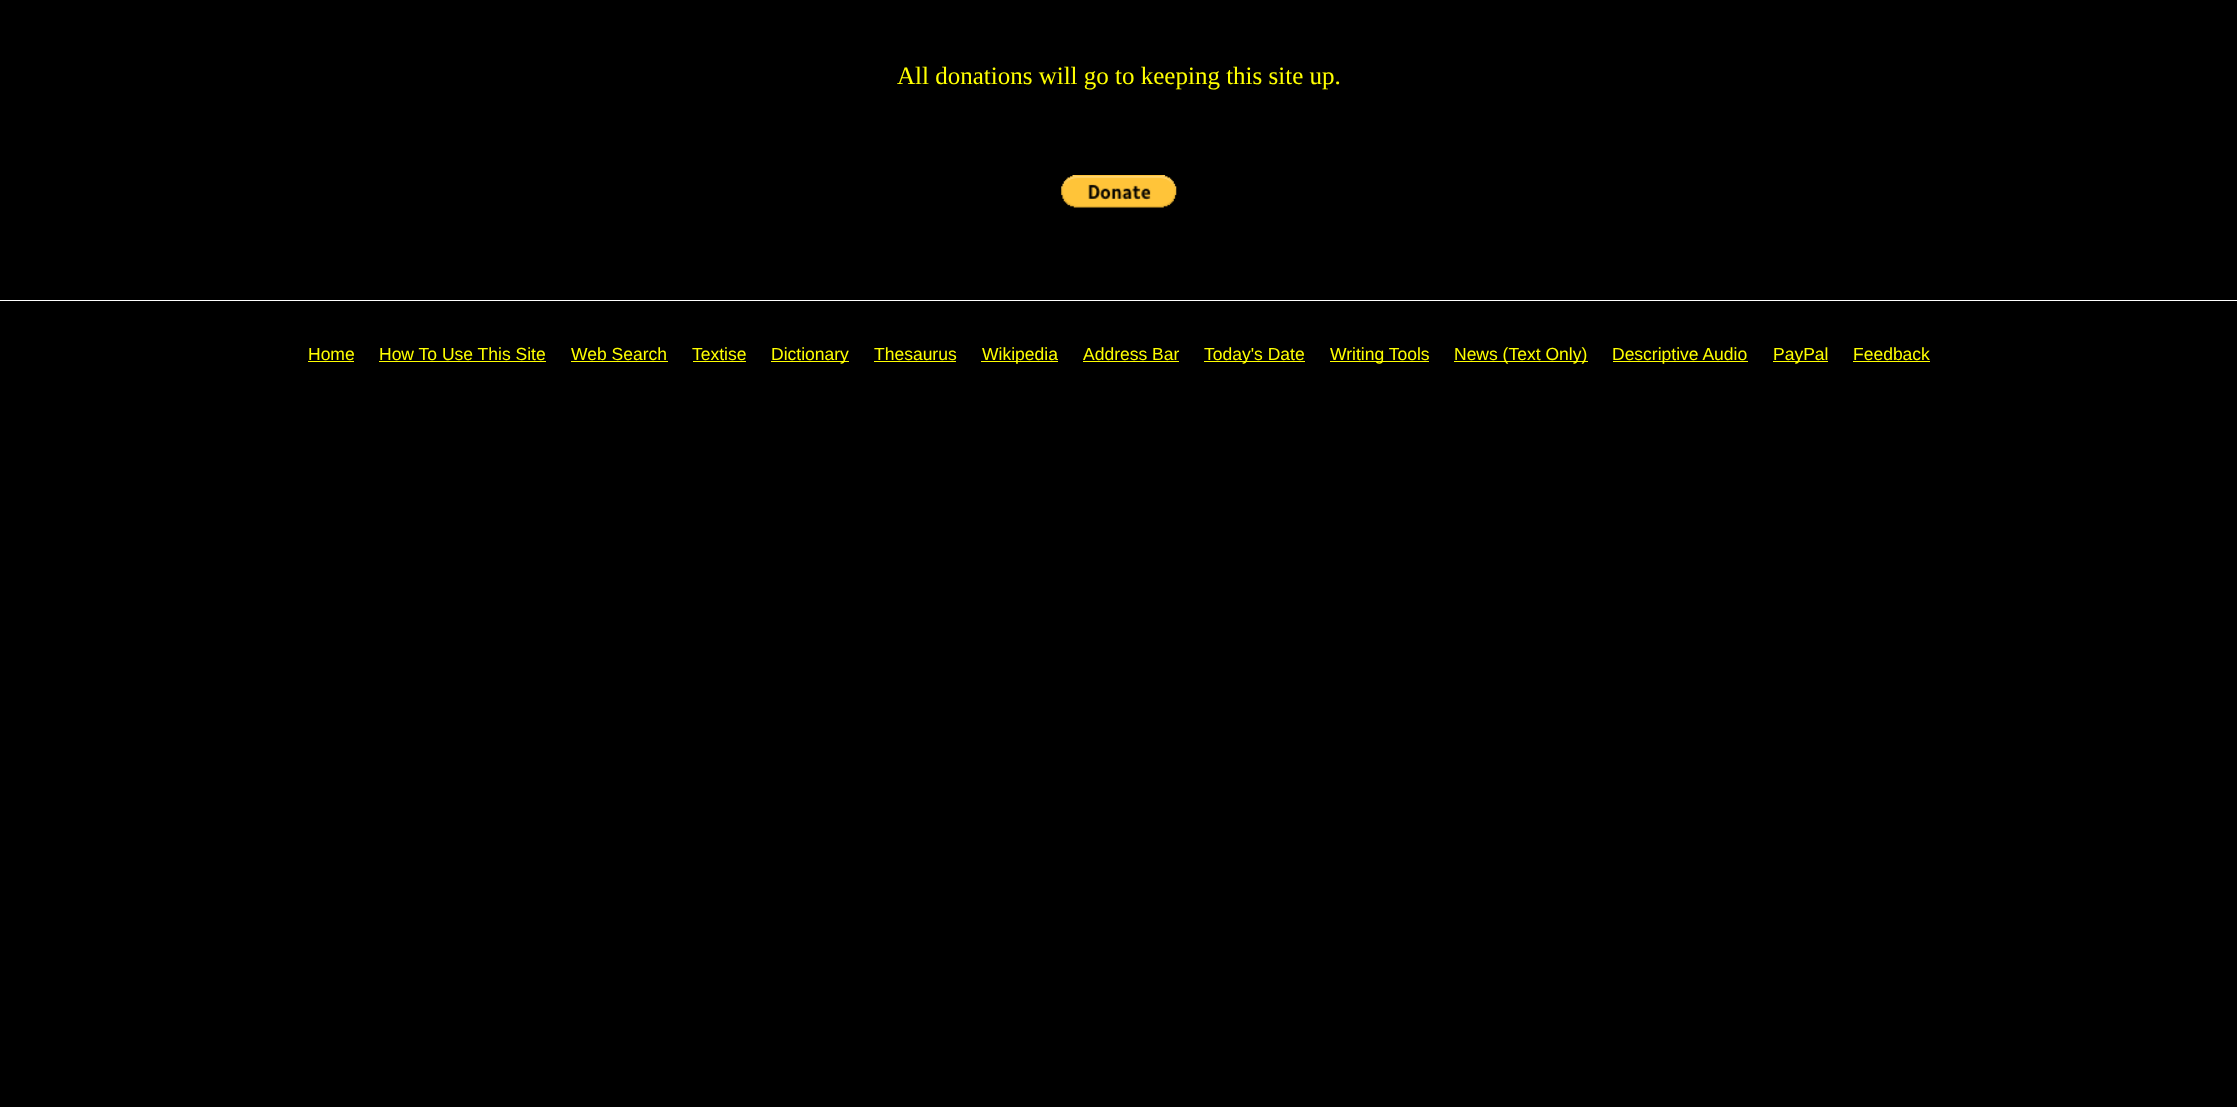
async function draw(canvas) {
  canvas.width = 2237
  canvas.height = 1107
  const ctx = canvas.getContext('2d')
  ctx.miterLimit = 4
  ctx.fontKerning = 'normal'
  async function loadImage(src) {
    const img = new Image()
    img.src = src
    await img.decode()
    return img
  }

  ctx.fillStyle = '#000'
  ctx.fillRect(0, 0, 2237, 1107)
  ctx.font = '25px Liberation Serif'
  ctx.fillStyle = '#ff0'
  ctx.fillText('All donations will go to keeping this site up.', 897, 84)
  ctx.drawImage(await loadImage('image0.png'), 1061, 175, 116, 33)
  ctx.fillStyle = '#fff'
  ctx.fillRect(0, 300, 2237, 1)
  ctx.font = '17.5px Liberation Sans'
  ctx.fillStyle = '#ff0'
  ctx.fillText('Home', 308, 360)
  ctx.fillRect(308, 361, 46, 1)
  ctx.fillText('How To Use This Site', 379, 360)
  ctx.fillRect(379, 361, 167, 1)
  ctx.fillText('Web Search', 571, 360)
  ctx.fillRect(571, 361, 97, 1)
  ctx.fillText('Textise', 692, 360)
  ctx.fillRect(693, 361, 53, 1)
  ctx.fillRect(771, 361, 78, 1)
  ctx.fillText('Dictionary', 771, 360)
  ctx.fillText('Thesaurus', 874, 360)
  ctx.fillRect(874, 361, 82, 1)
  ctx.fillRect(981, 361, 77, 1)
  ctx.fillText('Wikipedia', 982, 360)
  ctx.fillText('Address Bar', 1083, 360)
  ctx.fillRect(1083, 361, 96, 1)
  ctx.fillRect(1204, 361, 101, 1)
  ctx.fillText('Today\'s Date', 1204, 360)
  ctx.fillRect(1330, 361, 99, 1)
  ctx.fillText('Writing Tools', 1330, 360)
  ctx.fillRect(1454, 361, 134, 1)
  ctx.fillText('News (Text Only)', 1454, 360)
  ctx.fillRect(1613, 361, 135, 1)
  ctx.fillText('Descriptive Audio', 1612, 360)
  ctx.fillRect(1773, 361, 55, 1)
  ctx.fillText('PayPal', 1773, 360)
  ctx.fillText('Feedback', 1853, 360)
  ctx.fillRect(1853, 361, 77, 1)
}

draw(document.querySelector('canvas'))
